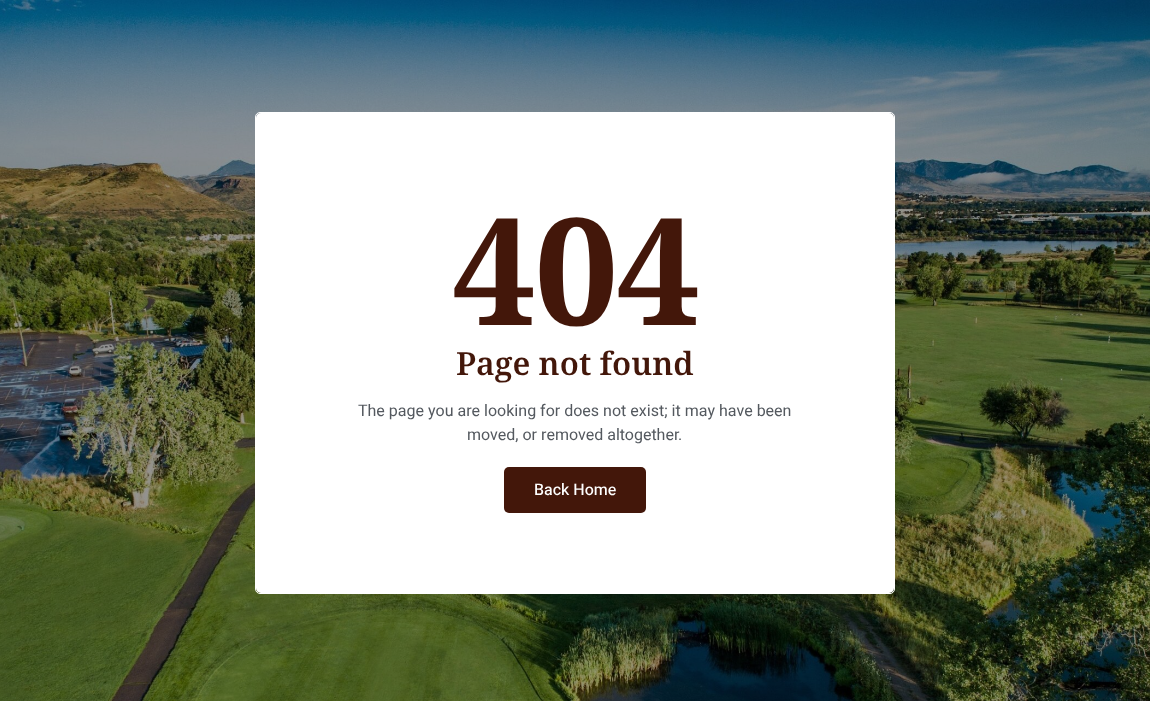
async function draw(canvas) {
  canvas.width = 1150
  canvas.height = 701
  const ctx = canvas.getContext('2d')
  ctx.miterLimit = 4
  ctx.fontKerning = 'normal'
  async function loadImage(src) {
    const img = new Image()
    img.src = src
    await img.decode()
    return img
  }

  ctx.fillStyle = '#fff'
  ctx.fillRect(0, 0, 1150, 701)
  ctx.drawImage(await loadImage('image0.png'), 0, 0, 1150, 701)
  ctx.beginPath()
  ctx.roundRect(255.5, 112.5, 639, 481, 4.5)
  ctx.strokeStyle = '#fff'
  ctx.stroke()
  ctx.beginPath()
  ctx.roundRect(256, 113, 638, 480, 5)
  ctx.fill()
  ctx.letterSpacing = '-2px'
  ctx.font = 'bold 149px Noto Serif'
  ctx.fillStyle = '#43170a'
  ctx.fillText('404', 452, 325)
  ctx.letterSpacing = '0px'
  ctx.font = '600 32px Noto Serif'
  ctx.fillText('Page not found', 456, 375)
  ctx.font = '16px Heebo'
  ctx.fillStyle = '#54595f'
  ctx.fillText('The page you are looking for does not exist; it may have been', 358, 416)
  ctx.fillText('moved, or removed altogether.', 467, 440)
  ctx.fillStyle = '#43170a'
  ctx.beginPath()
  ctx.roundRect(504, 467, 142, 46, 5)
  ctx.fill()
  ctx.font = '500 16px Heebo'
  ctx.fillStyle = '#fff'
  ctx.fillText('Back Home', 534, 495)
}

draw(document.querySelector('canvas'))
